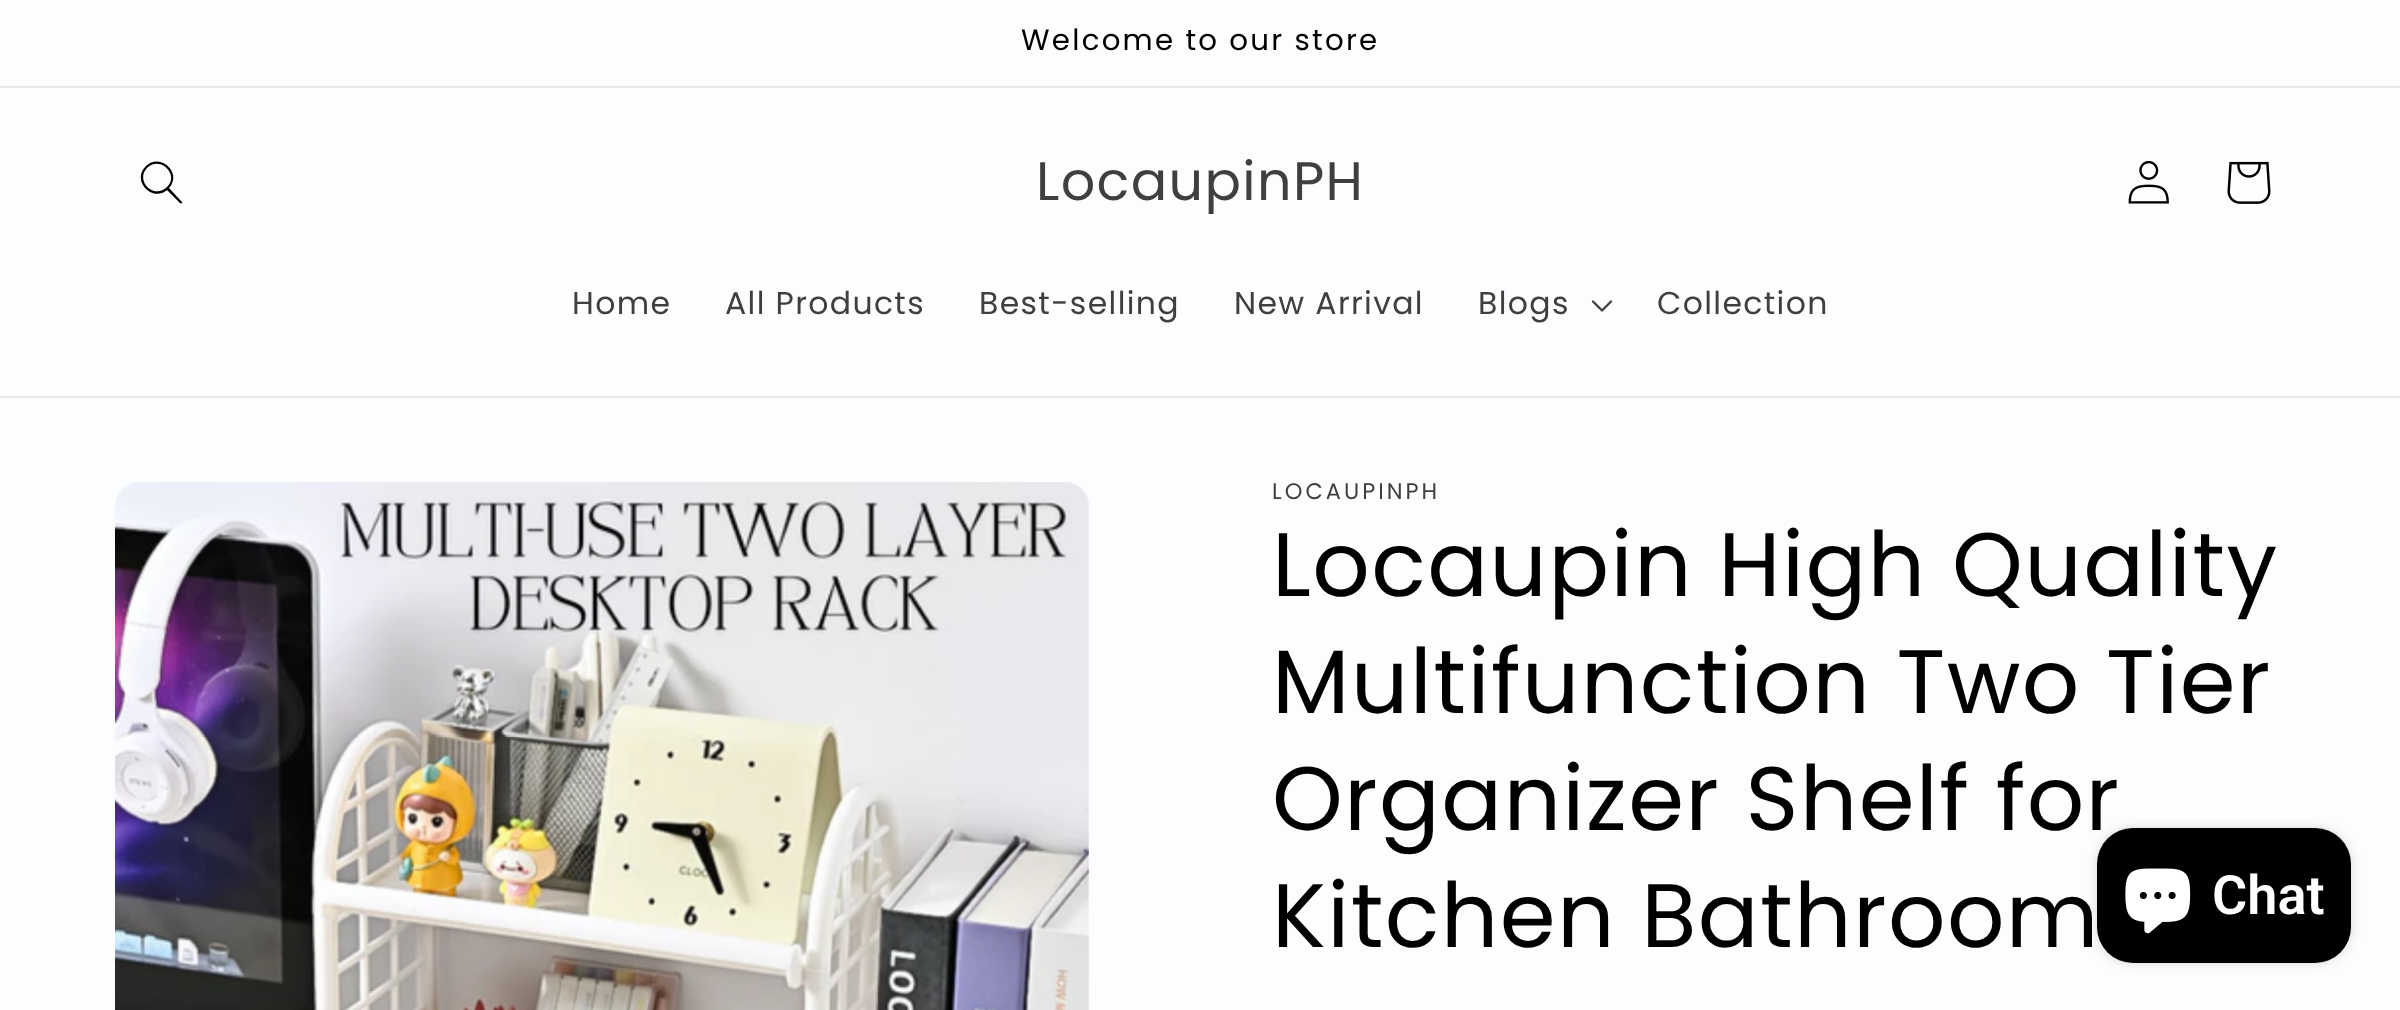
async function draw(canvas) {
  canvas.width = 2400
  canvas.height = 1010
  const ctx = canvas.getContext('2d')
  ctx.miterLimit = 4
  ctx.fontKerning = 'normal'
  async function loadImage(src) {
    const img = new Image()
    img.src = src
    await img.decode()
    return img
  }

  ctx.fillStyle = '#fcfdff'
  ctx.fillRect(0, 0, 2400, 1010)
  ctx.fillStyle = '#e8e9eb'
  ctx.fillRect(0, 86, 2400, 2)
  ctx.letterSpacing = '2.25px'
  ctx.font = '29.25px Poppins'
  ctx.fillStyle = '#000'
  ctx.fillText('Welcome to our store', 1021, 50)
  ctx.fillStyle = '#e8e9eb'
  ctx.fillRect(0, 396, 2400, 2)
  ctx.fillStyle = '#000'
  ctx.beginPath()
  ctx.moveTo(167, 187)
  ctx.bezierCurveTo(154, 200, 135, 181, 147, 168)
  ctx.bezierCurveTo(160, 155, 180, 175, 167, 187)
  ctx.moveTo(167, 190)
  ctx.bezierCurveTo(152, 203, 131, 180, 146, 166)
  ctx.bezierCurveTo(160, 152, 183, 173, 169, 188)
  ctx.lineTo(182, 202)
  ctx.bezierCurveTo(183, 203, 181, 204, 180, 203)
  ctx.closePath()
  ctx.fill('evenodd')
  ctx.letterSpacing = '1.35px'
  ctx.font = '54px Poppins'
  ctx.fillStyle = '#3f3f40'
  ctx.fillText('LocaupinPH', 1036, 200)
  ctx.drawImage(await loadImage('image0.png'), 2128, 160, 41, 44)
  ctx.drawImage(await loadImage('image1.png'), 2227, 161, 44, 43)
  ctx.font = '31.5px Poppins'
  ctx.fillText('Home', 572, 314)
  ctx.fillText('All Products', 725, 314)
  ctx.fillText('Best-selling', 979, 314)
  ctx.fillText('New Arrival', 1234, 314)
  ctx.fillText('Blogs', 1478, 314)
  ctx.drawImage(await loadImage('image2.png'), 1591, 300, 22, 12)
  ctx.fillText('Collection', 1657, 314)
  ctx.drawImage(await loadImage('image3.png'), 115, 482, 974, 528)
  ctx.letterSpacing = '3px'
  ctx.font = '22.5px Poppins'
  ctx.fillText('LOCAUPINPH', 1272, 499)
  ctx.letterSpacing = '1.35px'
  ctx.font = '90px Poppins'
  ctx.fillStyle = '#000'
  ctx.fillText('Locaupin High Quality', 1272, 596)
  ctx.fillText('Multifunction Two Tier', 1272, 713)
  ctx.fillText('Organizer Shelf for', 1272, 830)
  ctx.fillText('Kitchen Bathroom', 1272, 947)
  ctx.fillStyle = '#00000026'
  ctx.filter = 'blur(5.5px)'
  ctx.beginPath()
  ctx.roundRect(2097, 828, 254, 135, 36)
  ctx.fill()
  ctx.filter = 'none'
  ctx.fillStyle = '#000'
  ctx.beginPath()
  ctx.roundRect(2097, 828, 254, 135, 36)
  ctx.fill()
  ctx.drawImage(await loadImage('image4.png'), 2125, 868, 66, 66)
  ctx.letterSpacing = '0px'
  ctx.font = '600 54px Roboto'
  ctx.fillStyle = '#fff'
  ctx.fillText('Chat', 2212, 914)
}

draw(document.querySelector('canvas'))
